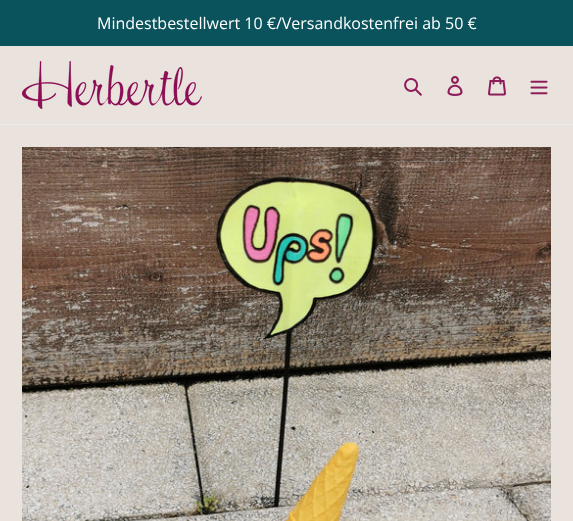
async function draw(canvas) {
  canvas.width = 573
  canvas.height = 521
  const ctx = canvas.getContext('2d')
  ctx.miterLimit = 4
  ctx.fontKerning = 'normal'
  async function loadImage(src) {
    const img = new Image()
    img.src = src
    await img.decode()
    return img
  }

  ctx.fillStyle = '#eae3dd'
  ctx.fillRect(0, 0, 573, 521)
  ctx.fillStyle = '#0a535c'
  ctx.fillRect(0, 0, 573, 46)
  ctx.font = '16px Open Sans'
  ctx.fillStyle = '#fff'
  ctx.fillText('Mindestbestellwert 10 €/Versandkostenfrei ab 50 €', 97, 29)
  ctx.fillStyle = '#ebebeb'
  ctx.fillRect(0, 124, 573, 1)
  ctx.drawImage(await loadImage('image0.png'), 22, 61, 180, 48)
  ctx.drawImage(await loadImage('image1.png'), 404, 78, 18, 18)
  ctx.drawImage(await loadImage('image2.png'), 447, 76, 16, 20)
  ctx.drawImage(await loadImage('image3.png'), 488, 76, 18, 20)
  ctx.drawImage(await loadImage('image4.png'), 530, 80, 18, 15)
  ctx.drawImage(await loadImage('image5.png'), 22, 147, 529, 374)
}

draw(document.querySelector('canvas'))
